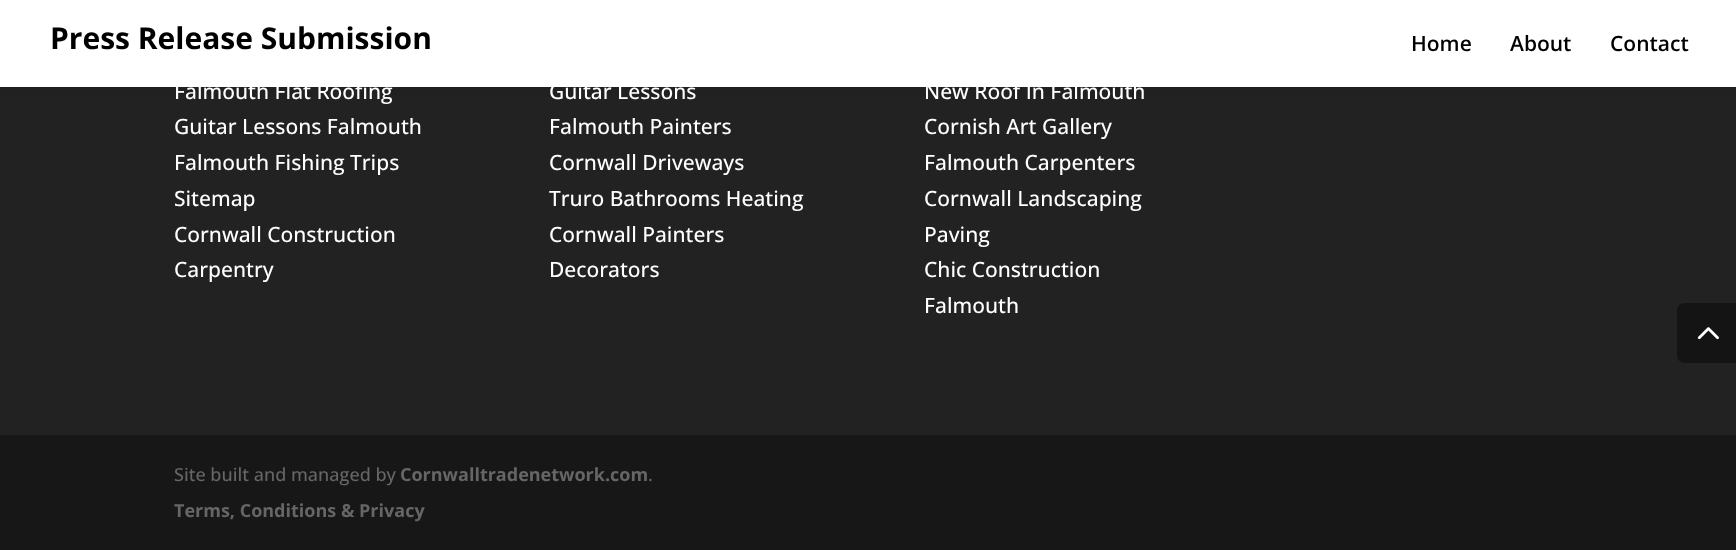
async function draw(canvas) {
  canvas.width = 1736
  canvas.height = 550
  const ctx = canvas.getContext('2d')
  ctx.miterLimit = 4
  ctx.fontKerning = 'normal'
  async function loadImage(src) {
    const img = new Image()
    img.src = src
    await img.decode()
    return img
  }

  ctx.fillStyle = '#222'
  ctx.fillRect(0, 0, 1736, 550)
  ctx.fillStyle = '#0000001a'
  ctx.filter = 'blur(5px)'
  ctx.beginPath()
  ctx.rect(0, 0, 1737, 87)
  ctx.fill()
  ctx.filter = 'none'
  ctx.fillStyle = '#fff'
  ctx.fillRect(0, 0, 1736, 87)
  ctx.font = 'bold 30px Open Sans'
  ctx.fillStyle = '#000'
  ctx.fillText('Press Release Submission', 50, 49)
  ctx.font = '600 21px Open Sans'
  ctx.fillText('Home', 1411, 51)
  ctx.fillText('About', 1510, 51)
  ctx.fillText('Contact', 1610, 51)
  ctx.font = '500 21px Open Sans'
  ctx.fillStyle = '#fff'
  ctx.fillText('Falmouth Flat Roofing', 174, 99)
  ctx.fillText('Guitar Lessons Falmouth', 174, 134)
  ctx.fillText('Falmouth Fishing Trips', 174, 170)
  ctx.fillText('Sitemap', 174, 206)
  ctx.fillText('Cornwall Construction', 174, 242)
  ctx.fillText('Carpentry', 174, 277)
  ctx.fillText('Guitar Lessons', 549, 99)
  ctx.fillText('Falmouth Painters', 549, 134)
  ctx.fillText('Cornwall Driveways', 549, 170)
  ctx.fillText('Truro Bathrooms Heating', 549, 206)
  ctx.fillText('Cornwall Painters', 549, 242)
  ctx.fillText('Decorators', 549, 277)
  ctx.fillText('New Roof In Falmouth', 924, 99)
  ctx.fillText('Cornish Art Gallery', 924, 134)
  ctx.fillText('Falmouth Carpenters', 924, 170)
  ctx.fillText('Cornwall Landscaping', 924, 206)
  ctx.fillText('Paving', 924, 242)
  ctx.fillText('Chic Construction', 924, 277)
  ctx.fillText('Falmouth', 924, 313)
  ctx.fillStyle = '#171717'
  ctx.fillRect(0, 435, 1736, 115)
  ctx.font = '500 18px Open Sans'
  ctx.fillStyle = '#666'
  ctx.fillText('Site built and managed by', 174, 481)
  ctx.font = 'bold 18px Open Sans'
  ctx.fillText('Cornwalltradenetwork.com', 400, 481)
  ctx.font = '500 18px Open Sans'
  ctx.fillText('.', 648, 481)
  ctx.font = 'bold 18px Open Sans'
  ctx.fillText('Terms, Conditions & Privacy', 174, 517)
  ctx.fillStyle = '#141414'
  ctx.beginPath()
  ctx.moveTo(1685, 303)
  ctx.lineTo(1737, 303)
  ctx.lineTo(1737, 363)
  ctx.lineTo(1685, 363)
  ctx.bezierCurveTo(1680.5, 363, 1677, 359.5, 1677, 355)
  ctx.lineTo(1677, 311)
  ctx.bezierCurveTo(1677, 306.5, 1680.5, 303, 1685, 303)
  ctx.closePath()
  ctx.fill()
  ctx.drawImage(await loadImage('image0.png'), 1697, 327, 22, 13)
}

draw(document.querySelector('canvas'))
